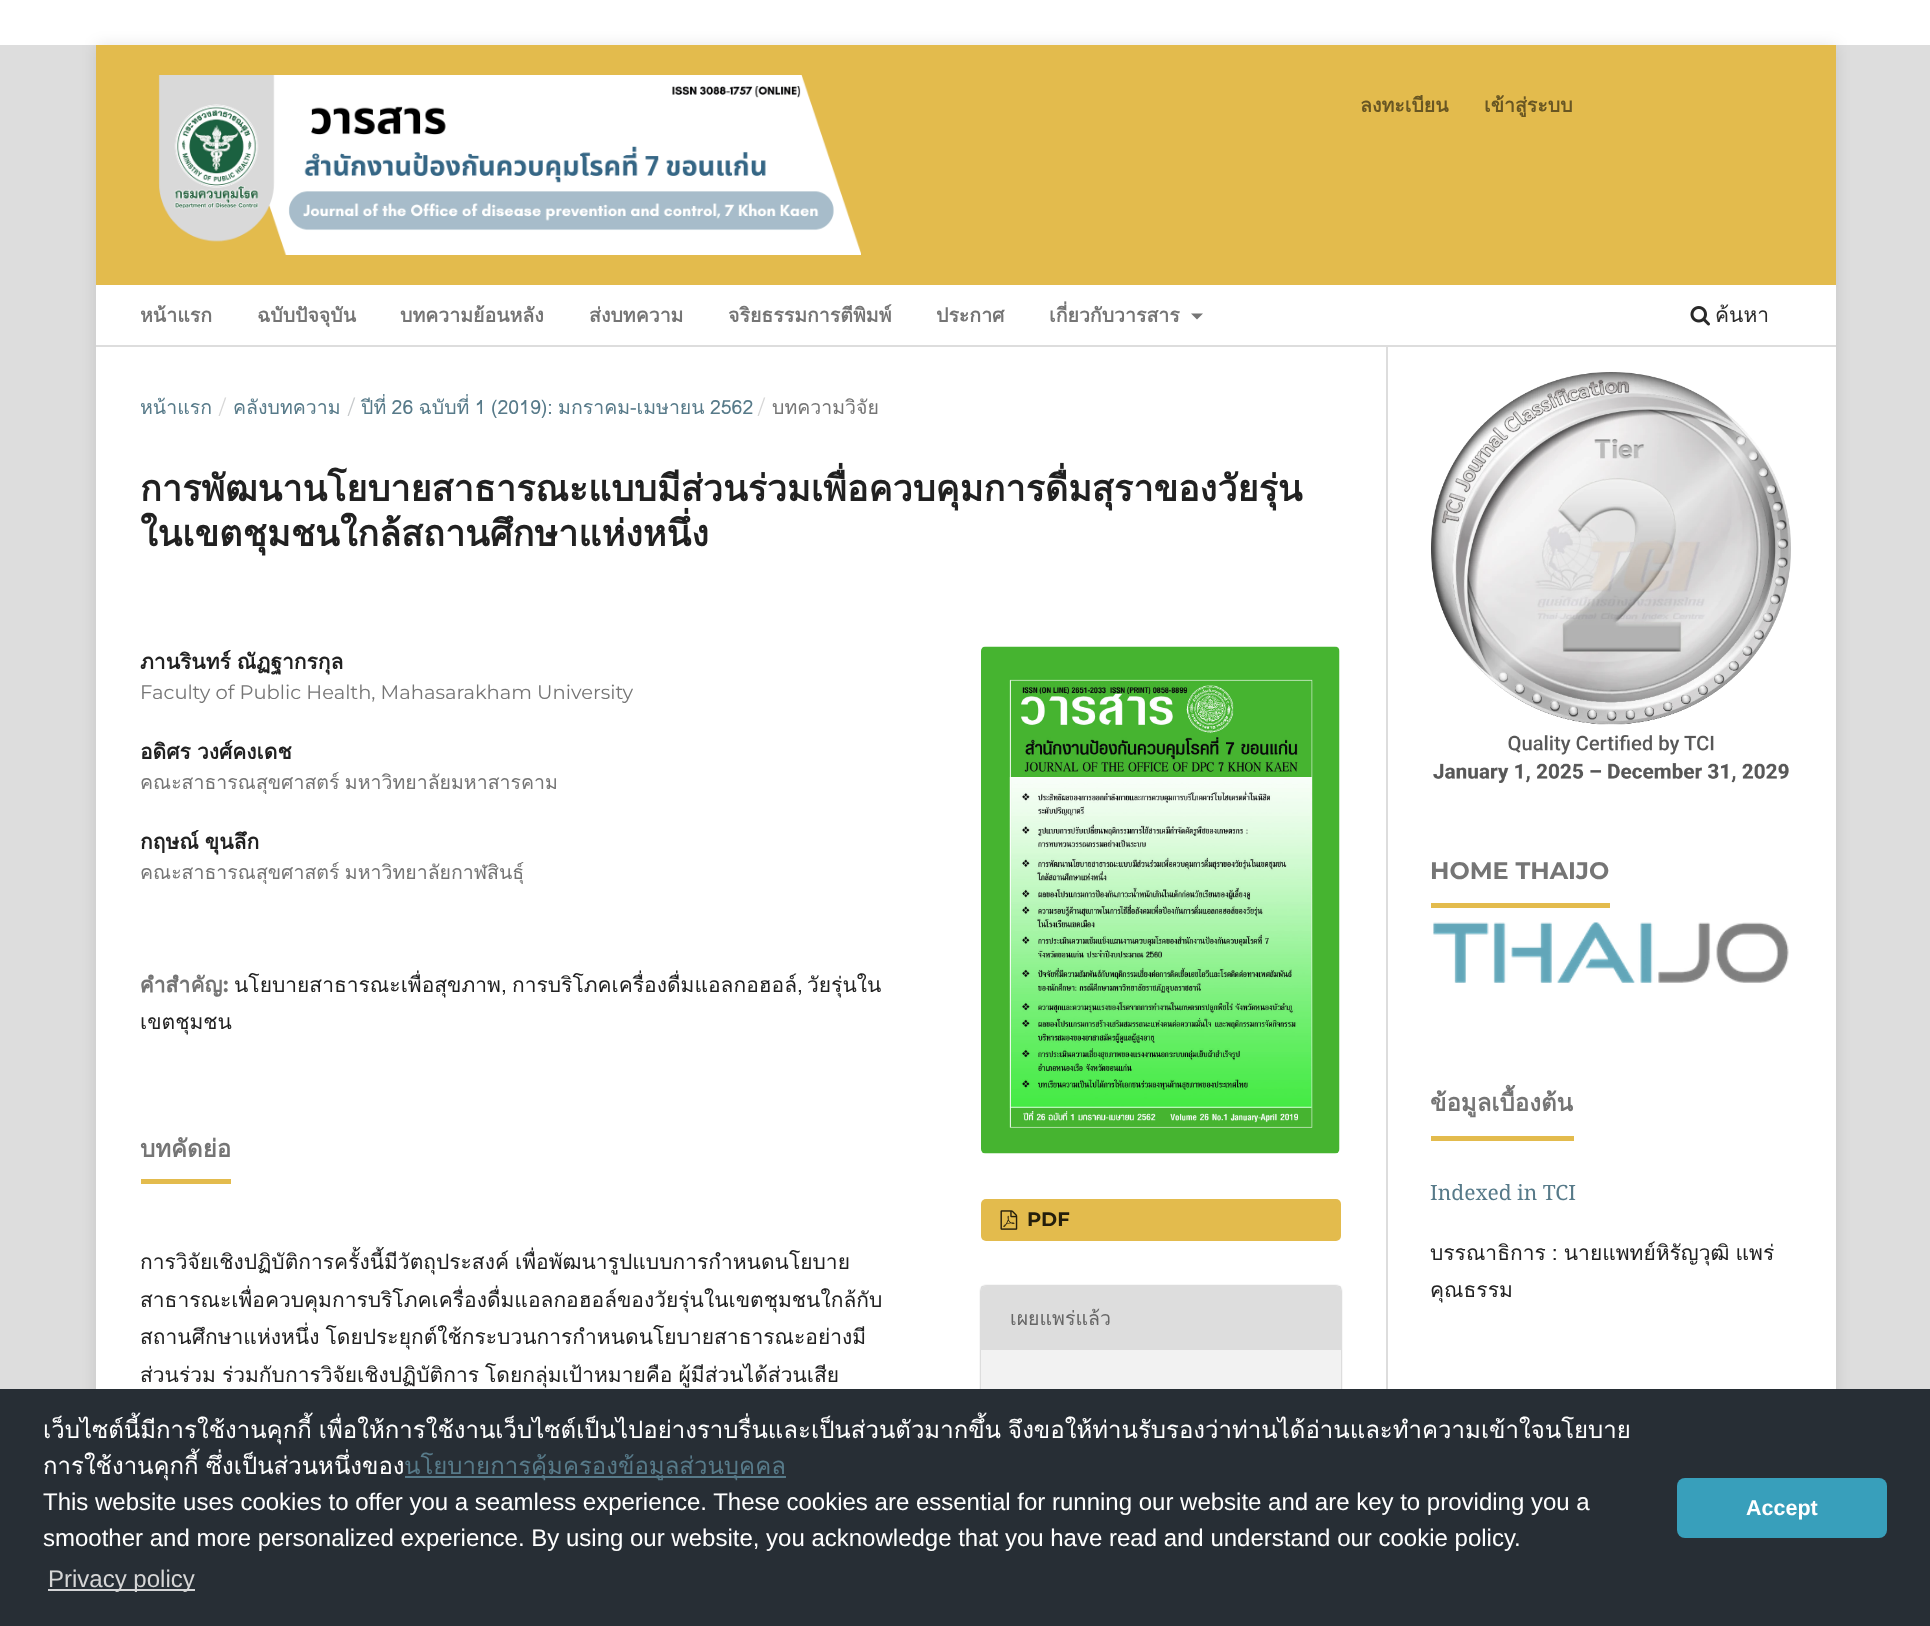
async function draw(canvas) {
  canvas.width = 1930
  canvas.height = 1626
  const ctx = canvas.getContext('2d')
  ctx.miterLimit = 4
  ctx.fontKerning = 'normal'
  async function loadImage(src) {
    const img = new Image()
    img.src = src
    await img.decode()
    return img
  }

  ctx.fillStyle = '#fff'
  ctx.fillRect(0, 0, 1930, 1626)
  ctx.fillStyle = '#ddd'
  ctx.fillRect(0, 45, 1930, 1344)
  ctx.fillStyle = '#0000001a'
  ctx.filter = 'blur(7.5px)'
  ctx.beginPath()
  ctx.rect(96, 45, 1740, 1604)
  ctx.fill()
  ctx.filter = 'none'
  ctx.fillStyle = '#fff'
  ctx.fillRect(96, 347, 1740, 1042)
  ctx.fillStyle = '#e3bb4d'
  ctx.fillRect(96, 45, 1740, 240)
  ctx.fillStyle = '#ddd'
  ctx.fillRect(96, 345, 1740, 2)
  ctx.drawImage(await loadImage('image0.png'), 158, 75, 703, 180)
  ctx.font = 'bold 19.5px Loma'
  ctx.fillStyle = '#685623'
  ctx.fillText('ลงทะเบียน', 1360, 112)
  ctx.fillText('เข้าสู่ระบบ', 1484, 112)
  ctx.fillStyle = '#fff'
  ctx.fillRect(96, 285, 1740, 60)
  ctx.fillStyle = '#757575'
  ctx.fillText('หน้าแรก', 140, 322)
  ctx.fillText('ฉบับปัจจุบัน', 257, 322)
  ctx.fillText('บทความย้อนหลัง', 400, 322)
  ctx.fillText('ส่งบทความ', 589, 322)
  ctx.fillText('จริยธรรมการตีพิมพ์', 728, 322)
  ctx.fillText('ประกาศ', 936, 322)
  ctx.fillText('เกี่ยวกับวารสาร', 1049, 322)
  ctx.beginPath()
  ctx.moveTo(1191, 313.5)
  ctx.lineTo(1203, 313.5)
  ctx.lineTo(1197, 319.5)
  ctx.closePath()
  ctx.fill()
  ctx.drawImage(await loadImage('image1.png'), 1690, 306, 20, 20)
  ctx.font = '21px Loma'
  ctx.fillStyle = '#292929'
  ctx.fillText('ค้นหา', 1715, 322)
  ctx.font = '19.5px Loma'
  ctx.fillStyle = '#577a89'
  ctx.fillText('หน้าแรก', 140, 414)
  ctx.font = '19.5px Montserrat'
  ctx.fillStyle = '#d6d6d6'
  ctx.fillText('/', 219, 414)
  ctx.font = '19.5px Loma'
  ctx.fillStyle = '#577a89'
  ctx.fillText('คลังบทความ', 233, 414)
  ctx.wordSpacing = '-1.25px'
  ctx.fillText('ปีที่ 26 ฉบับที่ 1 (2019): มกราคม-เมษายน 2562', 361, 414)
  ctx.wordSpacing = '0px'
  ctx.font = '19.5px Montserrat'
  ctx.fillStyle = '#c6c9cb'
  ctx.fillText('/', 348, 414)
  ctx.fillStyle = '#d6d6d6'
  ctx.fillText('/', 758, 414)
  ctx.font = '19.5px Loma'
  ctx.fillStyle = '#757575'
  ctx.fillText('บทความวิจัย', 772, 414)
  ctx.font = 'bold 36px Loma'
  ctx.fillStyle = '#212121'
  ctx.fillText('การพัฒนานโยบายสาธารณะแบบมีส่วนร่วมเพื่อควบคุมการดื่มสุราของวัยรุ่น', 140, 501)
  ctx.fillText('ในเขตชุมชนใกล้สถานศึกษาแห่งหนึ่ง', 140, 546)
  ctx.wordSpacing = '-1px'
  ctx.font = 'bold 21px Loma'
  ctx.fillText('ภานรินทร์ ณัฏฐากรกุล', 140, 669)
  ctx.wordSpacing = '0px'
  ctx.font = '19.5px Montserrat'
  ctx.fillStyle = '#757575'
  ctx.fillText('Faculty of Public Health, Mahasarakham University', 140, 699)
  ctx.wordSpacing = '-1px'
  ctx.font = 'bold 21px Loma'
  ctx.fillStyle = '#212121'
  ctx.fillText('อดิศร วงศ์คงเดช', 140, 759)
  ctx.wordSpacing = '-1.25px'
  ctx.font = '19.5px Loma'
  ctx.fillStyle = '#757575'
  ctx.fillText('คณะสาธารณสุขศาสตร์ มหาวิทยาลัยมหาสารคาม', 140, 789)
  ctx.wordSpacing = '-1px'
  ctx.font = 'bold 21px Loma'
  ctx.fillStyle = '#212121'
  ctx.fillText('กฤษณ์ ขุนลึก', 140, 849)
  ctx.wordSpacing = '-1.25px'
  ctx.font = '19.5px Loma'
  ctx.fillStyle = '#757575'
  ctx.fillText('คณะสาธารณสุขศาสตร์ มหาวิทยาลัยกาฬสินธุ์', 140, 879)
  ctx.wordSpacing = '0px'
  ctx.font = 'bold 21px Loma'
  ctx.fillText('คำสำคัญ', 140, 992)
  ctx.font = 'bold 21px Montserrat'
  ctx.fillText(':', 223, 992)
  ctx.font = '21px Loma'
  ctx.fillStyle = '#212121'
  ctx.fillText('นโยบายสาธารณะเพื่อสุขภาพ,', 234, 992)
  ctx.fillText('การบริโภคเครื่องดื่มแอลกอฮอล์,', 512, 992)
  ctx.fillText('วัยรุ่นใน', 807, 992)
  ctx.fillText('เขตชุมชน', 140, 1029)
  ctx.fillStyle = '#e3bb4d'
  ctx.fillRect(141, 1179, 90, 5)
  ctx.font = 'bold 24px Loma'
  ctx.fillStyle = '#757575'
  ctx.fillText('บทคัดย่อ', 140, 1157)
  ctx.wordSpacing = '-1px'
  ctx.font = '21px Loma'
  ctx.fillStyle = '#212121'
  ctx.fillText('การวิจัยเชิงปฏิบัติการครั้งนี้มีวัตถุประสงค์ เพื่อพัฒนารูปแบบการกำหนดนโยบาย', 140, 1269)
  ctx.wordSpacing = '0px'
  ctx.fillText('สาธารณะเพื่อควบคุมการบริโภคเครื่องดื่มแอลกอฮอล์ของวัยรุ่นในเขตชุมชนใกล้กับ', 140, 1307)
  ctx.wordSpacing = '-1px'
  ctx.fillText('สถานศึกษาแห่งหนึ่ง โดยประยุกต์ใช้กระบวนการกำหนดนโยบายสาธารณะอย่างมี', 140, 1344)
  ctx.fillText('ส่วนร่วม ร่วมกับการวิจัยเชิงปฏิบัติการ โดยกลุ่มเป้าหมายคือ ผู้มีส่วนได้ส่วนเสีย', 140, 1382)
  ctx.drawImage(await loadImage('image2.png'), 981, 646, 359, 508)
  ctx.fillStyle = '#e3bb4d'
  ctx.beginPath()
  ctx.roundRect(981, 1199, 360, 42, 5)
  ctx.fill()
  ctx.drawImage(await loadImage('image3.png'), 1000, 1210, 18, 20)
  ctx.wordSpacing = '0px'
  ctx.font = 'bold 19.5px Montserrat'
  ctx.fillStyle = '#241e0c'
  ctx.fillText('PDF', 1027, 1226)
  ctx.save()
  ctx.beginPath()
  ctx.moveTo(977, 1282)
  ctx.lineTo(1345, 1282)
  ctx.lineTo(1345, 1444)
  ctx.lineTo(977, 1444)
  ctx.closePath()
  ctx.moveTo(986, 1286)
  ctx.lineTo(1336, 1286)
  ctx.bezierCurveTo(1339, 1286, 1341, 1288, 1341, 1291)
  ctx.lineTo(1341, 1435)
  ctx.bezierCurveTo(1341, 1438, 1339, 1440, 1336, 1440)
  ctx.lineTo(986, 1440)
  ctx.bezierCurveTo(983, 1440, 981, 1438, 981, 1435)
  ctx.lineTo(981, 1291)
  ctx.bezierCurveTo(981, 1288, 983, 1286, 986, 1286)
  ctx.closePath()
  ctx.clip('evenodd')
  ctx.fillStyle = '#00000066'
  ctx.filter = 'blur(1px)'
  ctx.beginPath()
  ctx.roundRect(981, 1286, 360, 154, 5)
  ctx.fill()
  ctx.filter = 'none'
  ctx.restore()
  ctx.fillStyle = '#0000000d'
  ctx.fillRect(981, 1286, 360, 103)
  ctx.fillStyle = '#ddd'
  ctx.beginPath()
  ctx.roundRect(981, 1286, 360, 64, [5, 5, 0, 0])
  ctx.fill()
  ctx.font = '19.5px Loma'
  ctx.fillStyle = '#666'
  ctx.fillText('เผยแพร่แล้ว', 1010, 1325)
  ctx.fillStyle = '#ddd'
  ctx.fillRect(1386, 347, 2, 1042)
  ctx.drawImage(await loadImage('image4.png'), 1431, 372, 360, 411)
  ctx.fillStyle = '#e3bb4d'
  ctx.fillRect(1431, 903, 179, 5)
  ctx.font = 'bold 24px Montserrat'
  ctx.fillStyle = '#757575'
  ctx.fillText('HOME THAIJO', 1430, 879)
  ctx.drawImage(await loadImage('image5.png'), 1433, 922, 356, 61)
  ctx.fillStyle = '#e3bb4d'
  ctx.fillRect(1431, 1136, 143, 5)
  ctx.font = 'bold 24px Loma'
  ctx.fillStyle = '#757575'
  ctx.fillText('ข้อมูลเบื้องต้น', 1430, 1111)
  ctx.font = '21px Noto Serif'
  ctx.fillStyle = '#577a89'
  ctx.fillText('Indexed in TCI', 1430, 1200)
  ctx.wordSpacing = '-1px'
  ctx.font = '21px Loma'
  ctx.fillStyle = '#212121'
  ctx.fillText('บรรณาธิการ : นายแพทย์หิรัญวุฒิ แพร่', 1430, 1260)
  ctx.wordSpacing = '0px'
  ctx.fillText('คุณธรรม', 1430, 1297)
  ctx.fillStyle = '#272e35'
  ctx.fillRect(0, 1389, 1930, 237)
  ctx.wordSpacing = '-1px'
  ctx.font = '24px Loma'
  ctx.fillStyle = '#fff'
  ctx.fillText('เว็บไซต์นี้มีการใช้งานคุกกี้ เพื่อให้การใช้งานเว็บไซต์เป็นไปอย่างราบรื่นและเป็นส่วนตัวมากขึ้น จึงขอให้ท่านรับรองว่าท่านได้อ่านและทำความเข้าใจนโยบาย', 43, 1438)
  ctx.fillText('การใช้งานคุกกี้ ซึ่งเป็นส่วนหนึ่งของ', 43, 1474)
  ctx.fillStyle = '#577a89'
  ctx.fillRect(405, 1476, 381, 2)
  ctx.wordSpacing = '0px'
  ctx.fillText('นโยบายการคุ้มครองข้อมูลส่วนบุคคล', 404, 1474)
  ctx.font = '24px Liberation Sans'
  ctx.fillStyle = '#fff'
  ctx.fillText('This website uses cookies to offer you a seamless experience. These cookies are essential for running our website and are key to providing you a', 43, 1510)
  ctx.fillText('smoother and more personalized experience. By using our website, you acknowledge that you have read and understand our cookie policy.', 43, 1546)
  ctx.fillStyle = '#d4d5d7'
  ctx.fillRect(48, 1589, 147, 2)
  ctx.fillStyle = '#d6d6d6'
  ctx.fillText('Privacy policy', 48, 1587)
  ctx.fillStyle = '#389fbb'
  ctx.beginPath()
  ctx.roundRect(1677, 1478, 210, 60, 8)
  ctx.fill()
  ctx.font = 'bold 21.5px Liberation Sans'
  ctx.fillStyle = '#fff'
  ctx.fillText('Accept', 1746, 1515)
}

draw(document.querySelector('canvas'))
